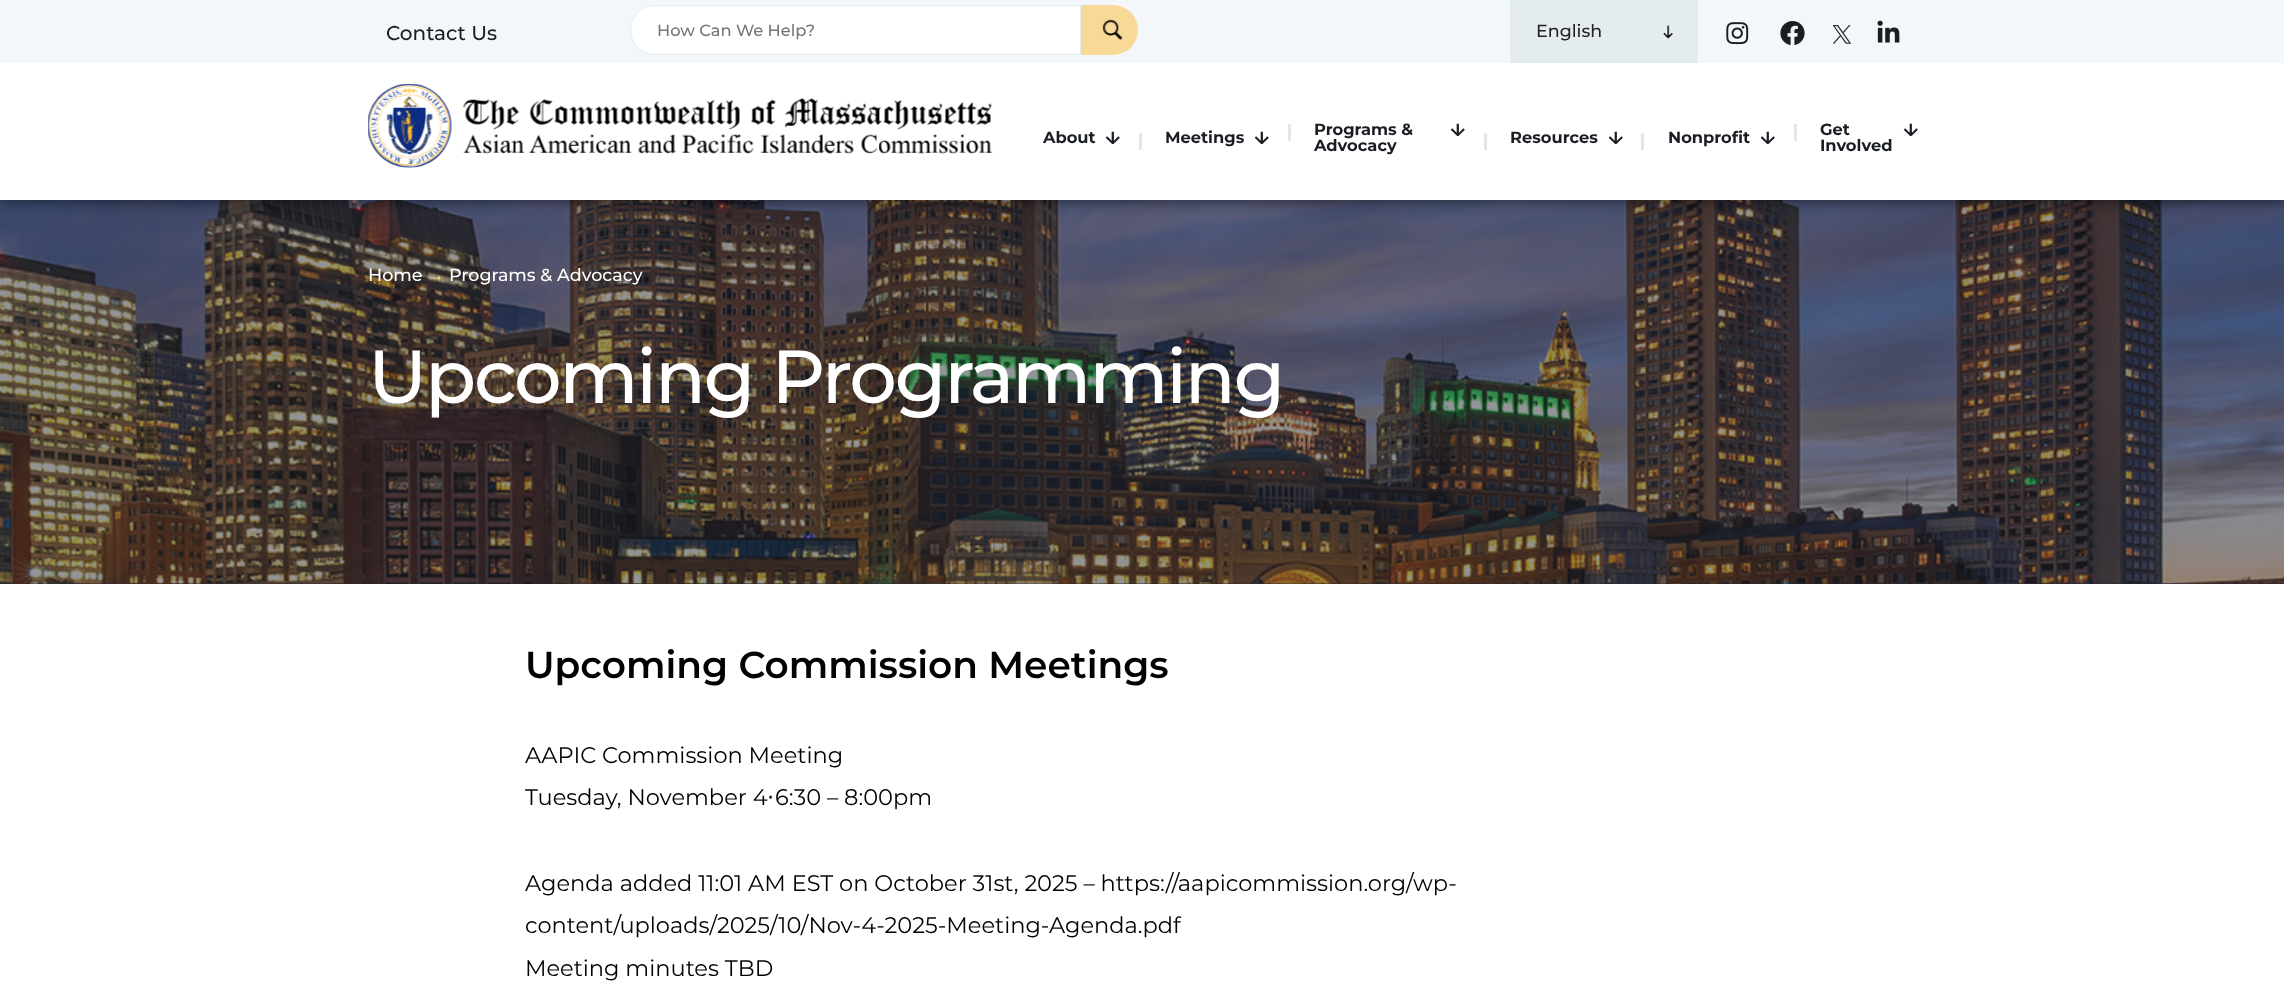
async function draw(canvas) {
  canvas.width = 2284
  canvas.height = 984
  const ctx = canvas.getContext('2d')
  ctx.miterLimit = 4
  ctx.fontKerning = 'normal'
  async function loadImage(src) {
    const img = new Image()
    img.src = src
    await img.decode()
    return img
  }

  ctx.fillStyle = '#fff'
  ctx.fillRect(0, 0, 2284, 984)
  ctx.fillStyle = '#282a35'
  ctx.fillRect(0, 200, 2284, 384)
  ctx.drawImage(await loadImage('image7.png'), 0, 200, 2284, 384)
  ctx.fillStyle = '#0000006b'
  ctx.filter = 'blur(6px)'
  ctx.beginPath()
  ctx.rect(0, 3, 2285, 200)
  ctx.fill()
  ctx.filter = 'none'
  ctx.fillStyle = '#fff'
  ctx.fillRect(0, 63, 2284, 137)
  ctx.fillStyle = '#f3f7fa'
  ctx.fillRect(0, 0, 2284, 63)
  ctx.font = '500 20px Montserrat'
  ctx.fillStyle = '#1a1e24'
  ctx.fillText('Contact Us', 386, 40)
  ctx.fillStyle = '#e5ecef'
  ctx.fillRect(1511, 1, 186, 61)
  ctx.drawImage(await loadImage('image0.png'), 1663, 25, 10, 14)
  ctx.strokeStyle = '#e1ebf2'
  ctx.strokeRect(1510.5, 0.5, 187, 62)
  ctx.font = '500 17.5px Montserrat'
  ctx.fillStyle = '#232323'
  ctx.fillText('English', 1536, 37)
  ctx.drawImage(await loadImage('image1.png'), 1726, 22, 23, 23)
  ctx.drawImage(await loadImage('image2.png'), 1780, 21, 25, 24)
  ctx.drawImage(await loadImage('image3.png'), 1833, 25, 18, 19)
  ctx.drawImage(await loadImage('image4.png'), 1877, 20, 23, 23)
  ctx.fillStyle = '#fff'
  ctx.beginPath()
  ctx.roundRect(630.5, 5.5, 450, 49, [24.5, 0, 0, 24.5])
  ctx.fill()
  ctx.stroke()
  ctx.font = '500 16.25px Montserrat'
  ctx.fillStyle = '#757575'
  ctx.fillText('How Can We Help?', 657, 36)
  ctx.fillStyle = '#f9d998'
  ctx.beginPath()
  ctx.roundRect(1081, 5, 57, 50, [0, 25, 25, 0])
  ctx.fill()
  ctx.drawImage(await loadImage('image5.png'), 1102, 19, 21, 21)
  ctx.drawImage(await loadImage('image6.png'), 368, 84, 625, 84)
  ctx.font = 'bold 16.25px Montserrat'
  ctx.fillStyle = '#1a1e24'
  ctx.fillText('About', 1043, 143)
  ctx.font = 'bold 17.5px DM Sans'
  ctx.fillText('↓', 1105, 144)
  ctx.fillStyle = '#e6e6e6'
  ctx.fillRect(1139, 133, 3, 17)
  ctx.font = 'bold 16.25px Montserrat'
  ctx.fillStyle = '#1a1e24'
  ctx.fillText('Meetings', 1165, 143)
  ctx.font = 'bold 17.5px DM Sans'
  ctx.fillText('↓', 1254, 144)
  ctx.fillStyle = '#e6e6e6'
  ctx.fillRect(1288, 124, 3, 17)
  ctx.font = 'bold 16.25px Montserrat'
  ctx.fillStyle = '#1a1e24'
  ctx.fillText('Programs &', 1314, 135)
  ctx.font = 'bold 17.5px DM Sans'
  ctx.fillText('↓', 1450, 136)
  ctx.font = 'bold 16.25px Montserrat'
  ctx.fillText('Advocacy', 1314, 151)
  ctx.fillStyle = '#e6e6e6'
  ctx.fillRect(1484, 133, 3, 17)
  ctx.fillStyle = '#1a1e24'
  ctx.fillText('Resources', 1510, 143)
  ctx.font = 'bold 17.5px DM Sans'
  ctx.fillText('↓', 1608, 144)
  ctx.fillStyle = '#e6e6e6'
  ctx.fillRect(1641, 133, 3, 17)
  ctx.font = 'bold 16.25px Montserrat'
  ctx.fillStyle = '#1a1e24'
  ctx.fillText('Nonprofit', 1668, 143)
  ctx.font = 'bold 17.5px DM Sans'
  ctx.fillText('↓', 1760, 144)
  ctx.fillStyle = '#e6e6e6'
  ctx.fillRect(1794, 124, 3, 17)
  ctx.font = 'bold 16.25px Montserrat'
  ctx.fillStyle = '#1a1e24'
  ctx.fillText('Get', 1820, 135)
  ctx.font = 'bold 17.5px DM Sans'
  ctx.fillText('↓', 1903, 136)
  ctx.font = 'bold 16.25px Montserrat'
  ctx.fillText('Involved', 1820, 151)
  ctx.font = '500 17.5px Montserrat'
  ctx.fillStyle = '#fff'
  ctx.fillText('Home', 368, 281)
  ctx.font = '17.5px Liberation Serif'
  ctx.fillStyle = '#f9d998'
  ctx.fillText('→', 427, 281)
  ctx.font = '500 17.5px Montserrat'
  ctx.fillStyle = '#fff'
  ctx.fillText('Programs & Advocacy', 449, 281)
  ctx.font = '600 37.5px Montserrat'
  ctx.fillStyle = '#000203'
  ctx.fillText('Upcoming Commission Meetings', 525, 678)
  ctx.font = '22.5px Montserrat'
  ctx.fillText('AAPIC Commission Meeting', 525, 763)
  ctx.fillText('Tuesday, November 4', 525, 805)
  ctx.font = '22.5px DejaVu Sans'
  ctx.fillText('⋅', 767, 805)
  ctx.font = '22.5px Montserrat'
  ctx.fillText('6:30 – 8:00pm', 775, 805)
  ctx.fillText('Agenda added 11:01 AM EST on October 31st, 2025 – https://aapicommission.org/wp-', 525, 891)
  ctx.fillText('content/uploads/2025/10/Nov-4-2025-Meeting-Agenda.pdf', 525, 933)
  ctx.fillText('Meeting minutes TBD', 525, 976)
  ctx.letterSpacing = '-2.25px'
  ctx.font = '500 75px Montserrat'
  ctx.fillStyle = '#fff'
  ctx.fillText('Upcoming Programming', 368, 403)
}

draw(document.querySelector('canvas'))
